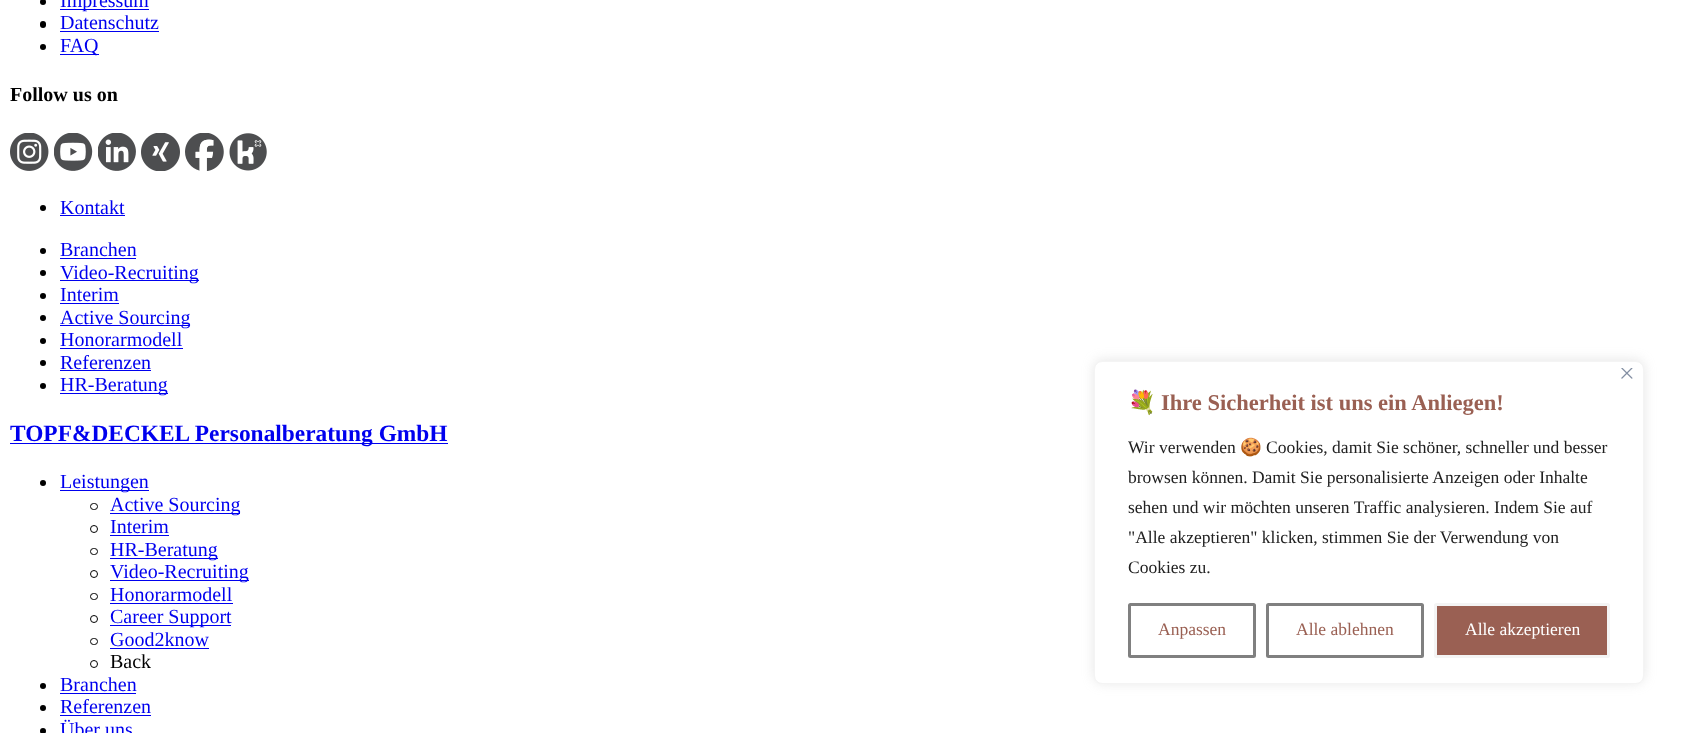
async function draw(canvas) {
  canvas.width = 1693
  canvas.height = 733
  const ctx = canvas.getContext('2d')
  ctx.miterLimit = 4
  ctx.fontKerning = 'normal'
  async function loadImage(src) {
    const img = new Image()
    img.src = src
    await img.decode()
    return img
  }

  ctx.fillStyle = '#fff'
  ctx.fillRect(0, 0, 1693, 733)
  ctx.fillStyle = '#000'
  ctx.beginPath()
  ctx.arc(43, 2, 3, 0, 2 * Math.PI)
  ctx.fill()
  ctx.fillStyle = '#00e'
  ctx.fillRect(60, 9, 89, 1)
  ctx.font = '20px Liberation Serif'
  ctx.fillText('Impressum', 60, 7)
  ctx.fillStyle = '#000'
  ctx.beginPath()
  ctx.roundRect(40, 21, 6, 7, 3)
  ctx.fill()
  ctx.fillStyle = '#00e'
  ctx.fillText('Datenschutz', 60, 29)
  ctx.fillRect(60, 31, 99, 1)
  ctx.fillStyle = '#000'
  ctx.beginPath()
  ctx.arc(43, 47, 3, 0, 2 * Math.PI)
  ctx.fill()
  ctx.fillStyle = '#00e'
  ctx.fillRect(60, 54, 39, 1)
  ctx.fillText('FAQ', 60, 52)
  ctx.font = 'bold 20px Liberation Serif'
  ctx.fillStyle = '#000'
  ctx.fillText('Follow us on', 10, 101)
  ctx.drawImage(await loadImage('image0.png'), 10, 133, 39, 38)
  ctx.drawImage(await loadImage('image1.png'), 54, 133, 39, 38)
  ctx.drawImage(await loadImage('image2.png'), 98, 133, 38, 38)
  ctx.drawImage(await loadImage('image3.png'), 141, 133, 39, 38)
  ctx.drawImage(await loadImage('image4.png'), 185, 133, 39, 38)
  ctx.drawImage(await loadImage('image5.png'), 229, 133, 38, 38)
  ctx.beginPath()
  ctx.arc(43, 208, 3, 0, 2 * Math.PI)
  ctx.fill()
  ctx.font = '20px Liberation Serif'
  ctx.fillStyle = '#00e'
  ctx.fillText('Kontakt', 60, 214)
  ctx.fillRect(60, 215, 65, 1)
  ctx.fillStyle = '#000'
  ctx.beginPath()
  ctx.arc(43, 251, 3, 0, 2 * Math.PI)
  ctx.fill()
  ctx.fillStyle = '#00e'
  ctx.fillText('Branchen', 60, 256)
  ctx.fillRect(60, 258, 76, 1)
  ctx.fillStyle = '#000'
  ctx.beginPath()
  ctx.arc(43, 273, 3, 0, 2 * Math.PI)
  ctx.fill()
  ctx.fillStyle = '#00e'
  ctx.fillRect(60, 280, 139, 1)
  ctx.fillText('Video-Recruiting', 60, 279)
  ctx.fillStyle = '#000'
  ctx.beginPath()
  ctx.arc(43, 296, 3, 0, 2 * Math.PI)
  ctx.fill()
  ctx.fillStyle = '#00e'
  ctx.fillText('Interim', 60, 301)
  ctx.fillRect(60, 303, 59, 1)
  ctx.fillStyle = '#000'
  ctx.beginPath()
  ctx.arc(43, 318, 3, 0, 2 * Math.PI)
  ctx.fill()
  ctx.fillStyle = '#00e'
  ctx.fillRect(60, 325, 130, 1)
  ctx.fillText('Active Sourcing', 60, 324)
  ctx.fillStyle = '#000'
  ctx.beginPath()
  ctx.arc(43, 341, 3, 0, 2 * Math.PI)
  ctx.fill()
  ctx.fillStyle = '#00e'
  ctx.fillText('Honorarmodell', 60, 346)
  ctx.fillRect(60, 348, 123, 1)
  ctx.fillStyle = '#000'
  ctx.beginPath()
  ctx.arc(43, 363, 3, 0, 2 * Math.PI)
  ctx.fill()
  ctx.fillStyle = '#00e'
  ctx.fillText('Referenzen', 60, 369)
  ctx.fillRect(60, 370, 91, 1)
  ctx.fillStyle = '#000'
  ctx.beginPath()
  ctx.arc(43, 386, 3, 0, 2 * Math.PI)
  ctx.fill()
  ctx.fillStyle = '#00e'
  ctx.fillRect(60, 393, 108, 1)
  ctx.fillText('HR-Beratung', 60, 391)
  ctx.fillRect(10, 443, 438, 1)
  ctx.font = 'bold 23.4px Liberation Serif'
  ctx.fillText('TOPF&DECKEL Personalberatung GmbH', 10, 441)
  ctx.fillStyle = '#000'
  ctx.beginPath()
  ctx.arc(43, 483, 3, 0, 2 * Math.PI)
  ctx.fill()
  ctx.fillStyle = '#00e'
  ctx.fillRect(60, 490, 89, 1)
  ctx.font = '20px Liberation Serif'
  ctx.fillText('Leistungen', 60, 488)
  ctx.beginPath()
  ctx.roundRect(90.5, 503.5, 7, 6, 3)
  ctx.strokeStyle = '#000'
  ctx.stroke()
  ctx.fillRect(110, 513, 130, 1)
  ctx.fillText('Active Sourcing', 110, 511)
  ctx.beginPath()
  ctx.arc(94, 529, 3.5, 0, 2 * Math.PI)
  ctx.stroke()
  ctx.fillText('Interim', 110, 533)
  ctx.fillRect(110, 535, 59, 1)
  ctx.beginPath()
  ctx.roundRect(90.5, 548.5, 7, 6, 3)
  ctx.stroke()
  ctx.fillRect(110, 558, 108, 1)
  ctx.fillText('HR-Beratung', 110, 556)
  ctx.beginPath()
  ctx.arc(94, 574, 3.5, 0, 2 * Math.PI)
  ctx.stroke()
  ctx.fillRect(110, 580, 139, 1)
  ctx.fillText('Video-Recruiting', 110, 578)
  ctx.beginPath()
  ctx.roundRect(90.5, 593.5, 7, 6, 3)
  ctx.stroke()
  ctx.fillText('Honorarmodell', 110, 601)
  ctx.fillRect(110, 603, 123, 1)
  ctx.beginPath()
  ctx.arc(94, 619, 3.5, 0, 2 * Math.PI)
  ctx.stroke()
  ctx.fillRect(110, 625, 121, 1)
  ctx.fillText('Career Support', 110, 623)
  ctx.beginPath()
  ctx.roundRect(90.5, 638.5, 7, 6, 3)
  ctx.stroke()
  ctx.fillText('Good2know', 110, 646)
  ctx.fillRect(110, 648, 99, 1)
  ctx.beginPath()
  ctx.arc(94, 664, 3.5, 0, 2 * Math.PI)
  ctx.stroke()
  ctx.fillStyle = '#000'
  ctx.fillText('Back', 110, 668)
  ctx.beginPath()
  ctx.arc(43, 686, 3, 0, 2 * Math.PI)
  ctx.fill()
  ctx.fillStyle = '#00e'
  ctx.fillText('Branchen', 60, 691)
  ctx.fillRect(60, 693, 76, 1)
  ctx.fillStyle = '#000'
  ctx.beginPath()
  ctx.arc(43, 708, 3, 0, 2 * Math.PI)
  ctx.fill()
  ctx.fillStyle = '#00e'
  ctx.fillText('Referenzen', 60, 713)
  ctx.fillRect(60, 715, 91, 1)
  ctx.fillStyle = '#000'
  ctx.beginPath()
  ctx.arc(43, 731, 3, 0, 2 * Math.PI)
  ctx.fill()
  ctx.fillStyle = '#00e'
  ctx.fillText('Über uns', 60, 736)
  ctx.fillStyle = '#acabab4d'
  ctx.filter = 'blur(6px)'
  ctx.beginPath()
  ctx.roundRect(1094, 360, 550, 323, 8)
  ctx.fill()
  ctx.filter = 'none'
  ctx.fillStyle = '#fff'
  ctx.beginPath()
  ctx.roundRect(1094.5, 361.5, 549, 322, 7.5)
  ctx.fill()
  ctx.strokeStyle = '#f4f4f4'
  ctx.stroke()
  ctx.drawImage(await loadImage('image6.png'), 1621, 368, 12, 11)
  ctx.font = 'bold 22.5px Noto Color Emoji'
  ctx.fillStyle = '#9a6053'
  ctx.fillText('💐', 1128, 410)
  ctx.font = 'bold 22.5px Liberation Serif'
  ctx.fillText('Ihre Sicherheit ist uns ein Anliegen!', 1161, 410)
  ctx.font = '17.5px Liberation Serif'
  ctx.fillStyle = '#212121'
  ctx.fillText('Wir verwenden', 1128, 453)
  ctx.font = '17.5px Noto Color Emoji'
  ctx.fillText('🍪', 1240, 453)
  ctx.font = '17.5px Liberation Serif'
  ctx.fillText('Cookies, damit Sie schöner, schneller und besser', 1266, 453)
  ctx.fillText('browsen können. Damit Sie personalisierte Anzeigen oder Inhalte', 1128, 483)
  ctx.fillText('sehen und wir möchten unseren Traffic analysieren. Indem Sie auf', 1128, 513)
  ctx.fillText('"Alle akzeptieren" klicken, stimmen Sie der Verwendung von', 1128, 543)
  ctx.fillText('Cookies zu.', 1128, 573)
  ctx.beginPath()
  ctx.roundRect(1129.5, 604.5, 125, 52, 1)
  ctx.strokeStyle = '#808080'
  ctx.lineWidth = 3
  ctx.stroke()
  ctx.fillStyle = '#9a6053'
  ctx.fillText('Anpassen', 1158, 635)
  ctx.beginPath()
  ctx.roundRect(1267.5, 604.5, 155, 52, 1)
  ctx.stroke()
  ctx.fillText('Alle ablehnen', 1296, 635)
  ctx.beginPath()
  ctx.roundRect(1435.5, 604.5, 173, 52, 1)
  ctx.fill()
  ctx.strokeStyle = '#f4f4f4'
  ctx.stroke()
  ctx.fillStyle = '#fff'
  ctx.fillText('Alle akzeptieren', 1465, 635)
}

draw(document.querySelector('canvas'))
